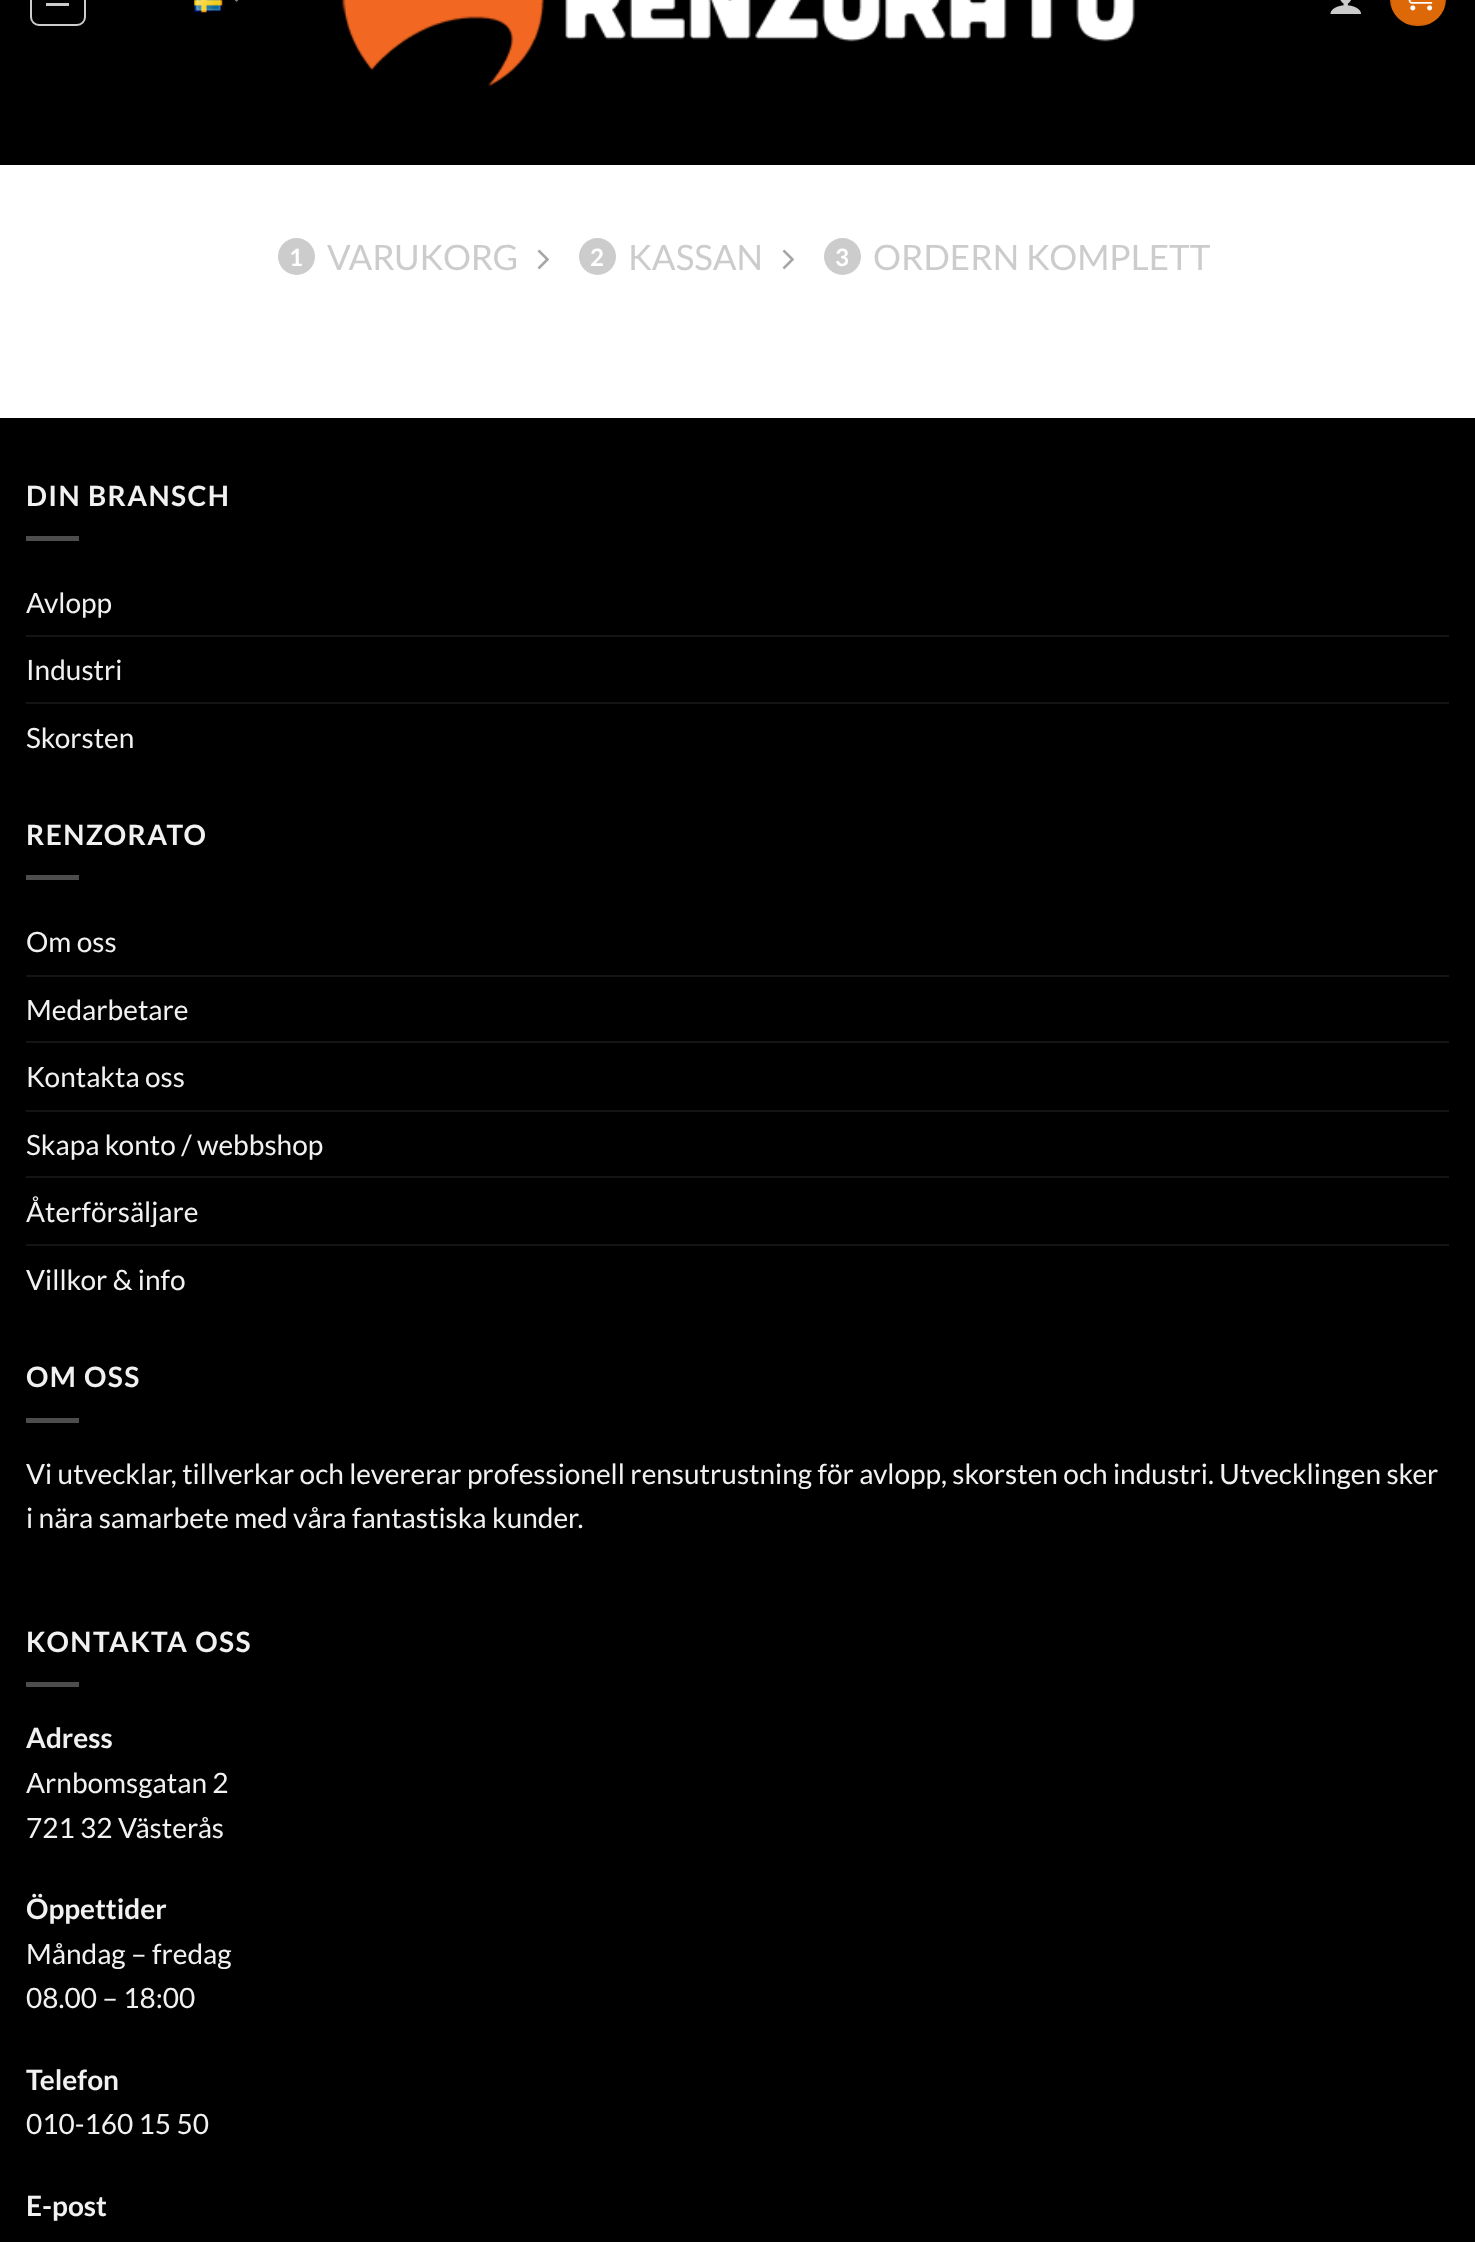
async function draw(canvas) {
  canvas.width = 1475
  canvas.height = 2242
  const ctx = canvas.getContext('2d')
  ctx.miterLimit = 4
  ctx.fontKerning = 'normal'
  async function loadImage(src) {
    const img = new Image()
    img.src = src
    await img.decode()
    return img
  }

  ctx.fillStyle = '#fff'
  ctx.fillRect(0, 0, 1475, 2242)
  ctx.fillStyle = '#000'
  ctx.fillRect(0, 0, 1475, 165)
  ctx.beginPath()
  ctx.roundRect(31, -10, 54, 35, 8)
  ctx.strokeStyle = '#ccc'
  ctx.lineWidth = 2
  ctx.stroke()
  ctx.fillStyle = '#ccc'
  ctx.fillRect(46, 3, 23, 3)
  ctx.drawImage(await loadImage('image0.png'), 194, 0, 29, 13)
  ctx.drawImage(await loadImage('image1.png'), 234, 0, 5, 2)
  ctx.drawImage(await loadImage('image2.png'), 342, 0, 793, 87)
  ctx.drawImage(await loadImage('image3.png'), 1330, 0, 31, 14)
  ctx.fillStyle = '#dd6808'
  ctx.beginPath()
  ctx.roundRect(1390, -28, 56, 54, 28)
  ctx.fill()
  ctx.strokeStyle = '#0000000d'
  ctx.strokeRect(1391, -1, 54, 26)
  ctx.drawImage(await loadImage('image4.png'), 1408, 0, 25, 11)
  ctx.fillStyle = '#ccc'
  ctx.beginPath()
  ctx.arc(296.5, 256.5, 18.5, 0, 2 * Math.PI)
  ctx.fill()
  ctx.font = 'bold 24px Lato'
  ctx.fillStyle = '#fff'
  ctx.fillText('1', 289, 266)
  ctx.font = '35px Lato'
  ctx.fillStyle = '#ccc'
  ctx.fillText('VARUKORG', 327, 270)
  ctx.drawImage(await loadImage('image5.png'), 537, 249, 12, 21)
  ctx.beginPath()
  ctx.arc(597.5, 256.5, 18.5, 0, 2 * Math.PI)
  ctx.fill()
  ctx.font = 'bold 24px Lato'
  ctx.fillStyle = '#fff'
  ctx.fillText('2', 590, 266)
  ctx.font = '35px Lato'
  ctx.fillStyle = '#ccc'
  ctx.fillText('KASSAN', 628, 270)
  ctx.drawImage(await loadImage('image5.png'), 782, 249, 12, 21)
  ctx.beginPath()
  ctx.arc(842.5, 256.5, 18.5, 0, 2 * Math.PI)
  ctx.fill()
  ctx.font = 'bold 24px Lato'
  ctx.fillStyle = '#fff'
  ctx.fillText('3', 835, 266)
  ctx.font = '35px Lato'
  ctx.fillStyle = '#ccc'
  ctx.fillText('ORDERN KOMPLETT', 873, 270)
  ctx.fillStyle = '#000'
  ctx.fillRect(0, 418, 1475, 1824)
  ctx.letterSpacing = '1.4px'
  ctx.font = 'bold 28px Lato'
  ctx.fillStyle = '#f1f1f1'
  ctx.fillText('DIN BRANSCH', 26, 506)
  ctx.fillStyle = '#4d4d4d'
  ctx.fillRect(26, 536, 53, 5)
  ctx.letterSpacing = '0px'
  ctx.font = '28px Lato'
  ctx.fillStyle = '#f1f1f1'
  ctx.fillText('Avlopp', 26, 613)
  ctx.fillStyle = '#141414'
  ctx.fillRect(26, 635, 1423, 2)
  ctx.fillStyle = '#f1f1f1'
  ctx.fillText('Industri', 26, 680)
  ctx.fillStyle = '#141414'
  ctx.fillRect(26, 702, 1423, 2)
  ctx.fillStyle = '#f1f1f1'
  ctx.fillText('Skorsten', 26, 748)
  ctx.letterSpacing = '1.4px'
  ctx.font = 'bold 28px Lato'
  ctx.fillText('RENZORATO', 26, 845)
  ctx.fillStyle = '#4d4d4d'
  ctx.fillRect(26, 875, 53, 5)
  ctx.letterSpacing = '0px'
  ctx.font = '28px Lato'
  ctx.fillStyle = '#f1f1f1'
  ctx.fillText('Om oss', 26, 952)
  ctx.fillStyle = '#141414'
  ctx.fillRect(26, 975, 1423, 2)
  ctx.fillStyle = '#f1f1f1'
  ctx.fillText('Medarbetare', 26, 1020)
  ctx.fillStyle = '#141414'
  ctx.fillRect(26, 1041, 1423, 2)
  ctx.fillStyle = '#f1f1f1'
  ctx.fillText('Kontakta oss', 26, 1087)
  ctx.fillStyle = '#141414'
  ctx.fillRect(26, 1110, 1423, 2)
  ctx.fillStyle = '#f1f1f1'
  ctx.fillText('Skapa konto / webbshop', 26, 1155)
  ctx.fillStyle = '#141414'
  ctx.fillRect(26, 1176, 1423, 2)
  ctx.fillStyle = '#f1f1f1'
  ctx.fillText('Återförsäljare', 26, 1222)
  ctx.fillStyle = '#141414'
  ctx.fillRect(26, 1244, 1423, 2)
  ctx.fillStyle = '#f1f1f1'
  ctx.fillText('Villkor & info', 26, 1290)
  ctx.letterSpacing = '1.4px'
  ctx.font = 'bold 28px Lato'
  ctx.fillText('OM OSS', 26, 1387)
  ctx.fillStyle = '#4d4d4d'
  ctx.fillRect(26, 1418, 53, 5)
  ctx.letterSpacing = '0px'
  ctx.font = '28px Lato'
  ctx.fillStyle = '#f1f1f1'
  ctx.fillText('Vi utvecklar, tillverkar och levererar professionell rensutrustning för avlopp, skorsten och industri. Utvecklingen sker', 26, 1484)
  ctx.fillText('i nära samarbete med våra fantastiska kunder.', 26, 1528)
  ctx.letterSpacing = '1.4px'
  ctx.font = 'bold 28px Lato'
  ctx.fillText('KONTAKTA OSS', 26, 1652)
  ctx.fillStyle = '#4d4d4d'
  ctx.fillRect(26, 1682, 53, 5)
  ctx.letterSpacing = '0px'
  ctx.fillStyle = '#f1f1f1'
  ctx.fillText('Adress', 26, 1748)
  ctx.font = '28px Lato'
  ctx.fillText('Arnbomsgatan 2', 26, 1793)
  ctx.fillText('721 32 Västerås', 26, 1838)
  ctx.font = 'bold 28px Lato'
  ctx.fillText('Öppettider', 26, 1919)
  ctx.font = '28px Lato'
  ctx.fillText('Måndag – fredag', 26, 1964)
  ctx.fillText('08.00 – 18:00', 26, 2008)
  ctx.font = 'bold 28px Lato'
  ctx.fillText('Telefon', 26, 2090)
  ctx.font = '28px Lato'
  ctx.fillText('010-160 15 50', 26, 2134)
  ctx.font = 'bold 28px Lato'
  ctx.fillText('E-post', 26, 2216)
}

draw(document.querySelector('canvas'))
